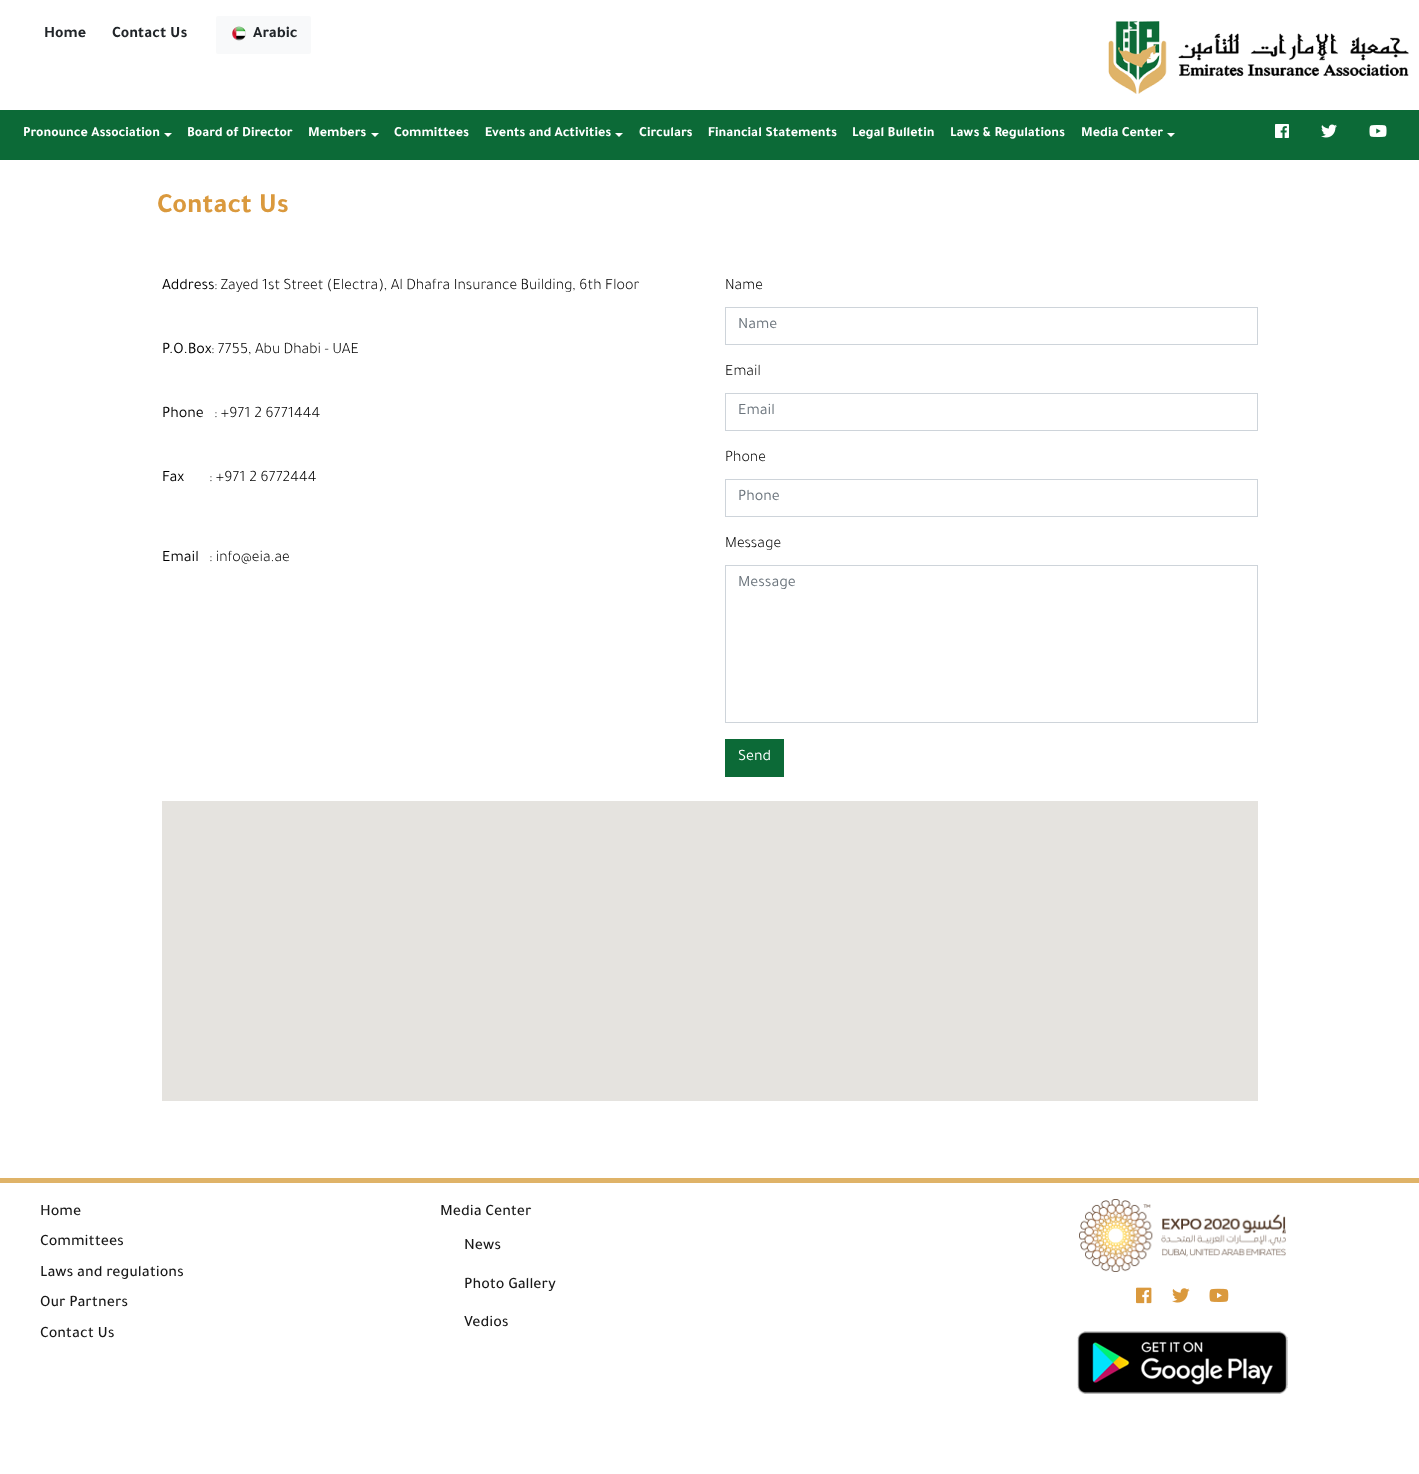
async function draw(canvas) {
  canvas.width = 1419
  canvas.height = 1474
  const ctx = canvas.getContext('2d')
  ctx.miterLimit = 4
  ctx.fontKerning = 'normal'
  async function loadImage(src) {
    const img = new Image()
    img.src = src
    await img.decode()
    return img
  }

  ctx.fillStyle = '#fff'
  ctx.fillRect(0, 0, 1419, 1474)
  ctx.font = 'bold 16px Tajawal'
  ctx.fillStyle = '#212529'
  ctx.fillText('Home', 44, 37)
  ctx.fillText('Contact Us', 112, 37)
  ctx.fillStyle = '#f8f9fa'
  ctx.beginPath()
  ctx.roundRect(216, 16, 95, 38, 2)
  ctx.fill()
  ctx.drawImage(await loadImage('image0.png'), 232, 26, 14, 15)
  ctx.fillStyle = '#212529'
  ctx.fillText('Arabic', 253, 37)
  ctx.drawImage(await loadImage('image1.png'), 1108, 21, 301, 73)
  ctx.fillStyle = '#0c6a37'
  ctx.fillRect(0, 110, 1419, 50)
  ctx.font = 'bold 14px Tajawal'
  ctx.fillStyle = '#fff'
  ctx.fillText('Pronounce Association', 23, 136)
  ctx.beginPath()
  ctx.moveTo(164, 133)
  ctx.lineTo(172, 133)
  ctx.lineTo(168, 137)
  ctx.closePath()
  ctx.fill()
  ctx.fillText('Board of Director', 187, 136)
  ctx.fillText('Members', 308, 136)
  ctx.beginPath()
  ctx.moveTo(371, 133)
  ctx.lineTo(379, 133)
  ctx.lineTo(375, 137)
  ctx.closePath()
  ctx.fill()
  ctx.fillText('Committees', 394, 136)
  ctx.fillText('Events and Activities', 485, 136)
  ctx.beginPath()
  ctx.moveTo(615, 133)
  ctx.lineTo(623, 133)
  ctx.lineTo(619, 137)
  ctx.closePath()
  ctx.fill()
  ctx.fillText('Circulars', 639, 136)
  ctx.fillText('Financial Statements', 708, 136)
  ctx.fillText('Legal Bulletin', 852, 136)
  ctx.fillText('Laws & Regulations', 950, 136)
  ctx.fillText('Media Center', 1081, 136)
  ctx.beginPath()
  ctx.moveTo(1167, 133)
  ctx.lineTo(1175, 133)
  ctx.lineTo(1171, 137)
  ctx.closePath()
  ctx.fill()
  ctx.drawImage(await loadImage('image2.png'), 1275, 124, 14, 14)
  ctx.drawImage(await loadImage('image3.png'), 1321, 124, 16, 14)
  ctx.drawImage(await loadImage('image4.png'), 1369, 125, 18, 12)
  ctx.font = 'bold 28px Tajawal'
  ctx.fillStyle = '#da993d'
  ctx.fillText('Contact Us', 157, 212)
  ctx.font = '16px Tajawal'
  ctx.fillStyle = '#000'
  ctx.fillText('Address', 162, 289)
  ctx.font = '300 16px Tajawal'
  ctx.fillText(': Zayed 1st Street (Electra), Al Dhafra Insurance Building, 6th Floor', 214, 289)
  ctx.font = '16px Tajawal'
  ctx.fillText('P.O.Box', 162, 353)
  ctx.font = '300 16px Tajawal'
  ctx.fillText(': 7755, Abu Dhabi - UAE', 211, 353)
  ctx.font = '16px Tajawal'
  ctx.fillText('Phone', 162, 417)
  ctx.font = '300 16px Tajawal'
  ctx.fillText(': +971 2 6771444', 214, 417)
  ctx.font = '16px Tajawal'
  ctx.fillText('Fax', 162, 481)
  ctx.font = '300 16px Tajawal'
  ctx.fillText(': +971 2 6772444', 209, 481)
  ctx.font = '16px Tajawal'
  ctx.fillText('Email', 162, 561)
  ctx.font = '300 16px Tajawal'
  ctx.fillText(': info@eia.ae', 209, 561)
  ctx.fillText('Name', 725, 289)
  ctx.strokeStyle = '#ced4da'
  ctx.strokeRect(725.5, 307.5, 532, 37)
  ctx.font = '16px Tajawal'
  ctx.fillStyle = '#6c757d'
  ctx.fillText('Name', 738, 328)
  ctx.font = '300 16px Tajawal'
  ctx.fillStyle = '#000'
  ctx.fillText('Email', 725, 375)
  ctx.strokeRect(725.5, 393.5, 532, 37)
  ctx.font = '16px Tajawal'
  ctx.fillStyle = '#6c757d'
  ctx.fillText('Email', 738, 414)
  ctx.font = '300 16px Tajawal'
  ctx.fillStyle = '#000'
  ctx.fillText('Phone', 725, 461)
  ctx.strokeRect(725.5, 479.5, 532, 37)
  ctx.font = '16px Tajawal'
  ctx.fillStyle = '#6c757d'
  ctx.fillText('Phone', 738, 500)
  ctx.font = '300 16px Tajawal'
  ctx.fillStyle = '#000'
  ctx.fillText('Message', 725, 547)
  ctx.strokeRect(725.5, 565.5, 532, 157)
  ctx.font = '16px Tajawal'
  ctx.fillStyle = '#6c757d'
  ctx.fillText('Message', 738, 586)
  ctx.fillStyle = '#0c6a37'
  ctx.fillRect(725, 739, 59, 38)
  ctx.fillStyle = '#fff'
  ctx.fillText('Send', 738, 760)
  ctx.fillStyle = '#e5e3df'
  ctx.fillRect(162, 801, 1096, 300)
  ctx.fillStyle = '#dfb368'
  ctx.fillRect(0, 1178, 1419, 5)
  ctx.font = '500 16px Tajawal'
  ctx.fillStyle = '#181818'
  ctx.fillText('Home', 40, 1215)
  ctx.fillText('Committees', 40, 1245)
  ctx.fillText('Laws and regulations', 40, 1276)
  ctx.fillText('Our Partners', 40, 1306)
  ctx.fillText('Contact Us', 40, 1337)
  ctx.fillText('Media Center', 440, 1215)
  ctx.fillText('News', 464, 1249)
  ctx.fillText('Photo Gallery', 464, 1288)
  ctx.fillText('Vedios', 464, 1326)
  ctx.drawImage(await loadImage('image5.png'), 1079, 1199, 207, 73)
  ctx.drawImage(await loadImage('image6.png'), 1136, 1287, 16, 17)
  ctx.drawImage(await loadImage('image7.png'), 1172, 1288, 18, 15)
  ctx.drawImage(await loadImage('image8.png'), 1209, 1288, 20, 14)
  ctx.drawImage(await loadImage('image9.png'), 1077, 1331, 211, 63)
}

draw(document.querySelector('canvas'))
